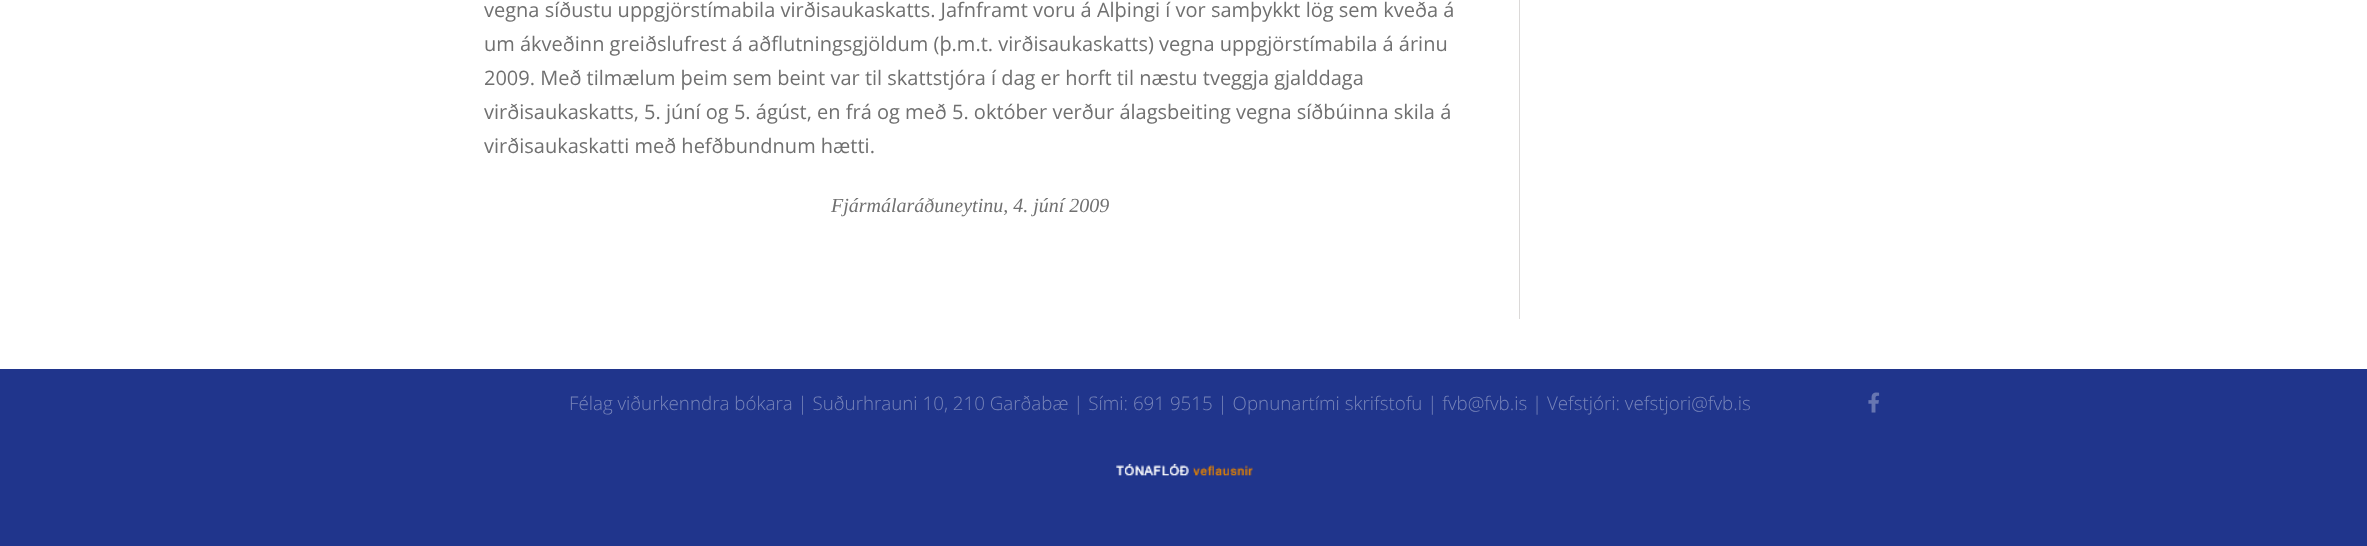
async function draw(canvas) {
  canvas.width = 2367
  canvas.height = 546
  const ctx = canvas.getContext('2d')
  ctx.miterLimit = 4
  ctx.fontKerning = 'normal'
  async function loadImage(src) {
    const img = new Image()
    img.src = src
    await img.decode()
    return img
  }

  ctx.fillStyle = '#fff'
  ctx.fillRect(0, 0, 2367, 546)
  ctx.font = '20px Open Sans'
  ctx.fillStyle = '#707070'
  ctx.fillText('vegna síðustu uppgjörstímabila virðisaukaskatts. Jafnframt voru á Alþingi í vor samþykkt lög sem kveða á', 484, 17)
  ctx.fillText('um ákveðinn greiðslufrest á aðflutningsgjöldum (þ.m.t. virðisaukaskatts) vegna uppgjörstímabila á árinu', 484, 51)
  ctx.fillText('2009. Með tilmælum þeim sem beint var til skattstjóra í dag er horft til næstu tveggja gjalddaga', 484, 85)
  ctx.fillText('virðisaukaskatts, 5. júní og 5. ágúst, en frá og með 5. október verður álagsbeiting vegna síðbúinna skila á', 484, 119)
  ctx.fillText('virðisaukaskatti með hefðbundnum hætti.', 484, 153)
  ctx.font = 'italic 20px Liberation Serif'
  ctx.fillText('Fjármálaráðuneytinu, 4. júní 2009', 831, 212)
  ctx.fillStyle = '#dbd9d8'
  ctx.fillRect(1519, 0, 1, 319)
  ctx.fillStyle = '#20358c'
  ctx.fillRect(0, 369, 2367, 177)
  ctx.font = '300 18.75px Open Sans'
  ctx.fillStyle = '#7784b9'
  ctx.fillText('Félag viðurkenndra bókara | Suðurhrauni 10, 210 Garðabæ | Sími: 691 9515 | Opnunartími skrifstofu | fvb@fvb.is | Vefstjóri: vefstjori@fvb.is', 569, 410)
  ctx.drawImage(await loadImage('image0.png'), 1868, 392, 12, 21)
  ctx.drawImage(await loadImage('image1.png'), 1116, 463, 137, 13)
}

draw(document.querySelector('canvas'))
